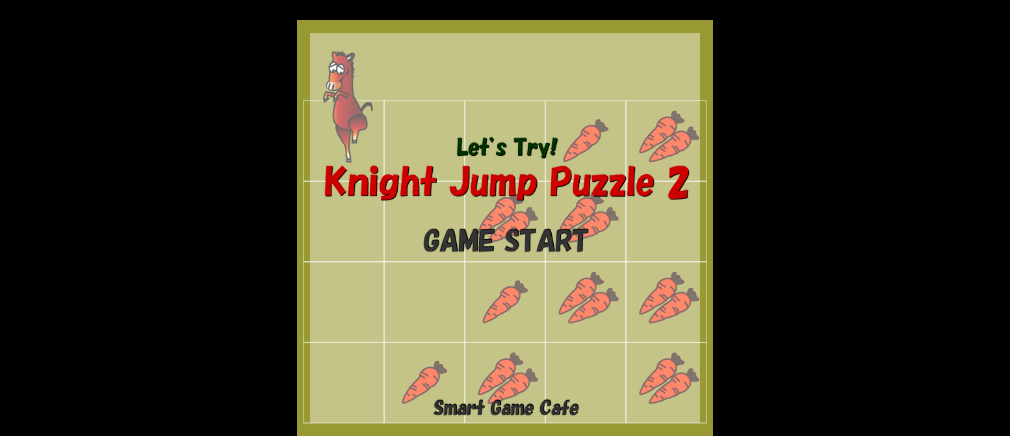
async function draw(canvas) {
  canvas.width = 1010
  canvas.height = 436
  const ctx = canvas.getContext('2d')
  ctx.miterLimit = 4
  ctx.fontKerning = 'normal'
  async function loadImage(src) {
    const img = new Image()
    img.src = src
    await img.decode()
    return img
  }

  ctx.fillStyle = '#000'
  ctx.fillRect(0, 0, 1010, 436)
  ctx.fillStyle = '#993'
  ctx.fillRect(297, 20, 416, 416)
  ctx.drawImage(await loadImage('image0.png'), 303, 33, 404, 391)
}

draw(document.querySelector('canvas'))
